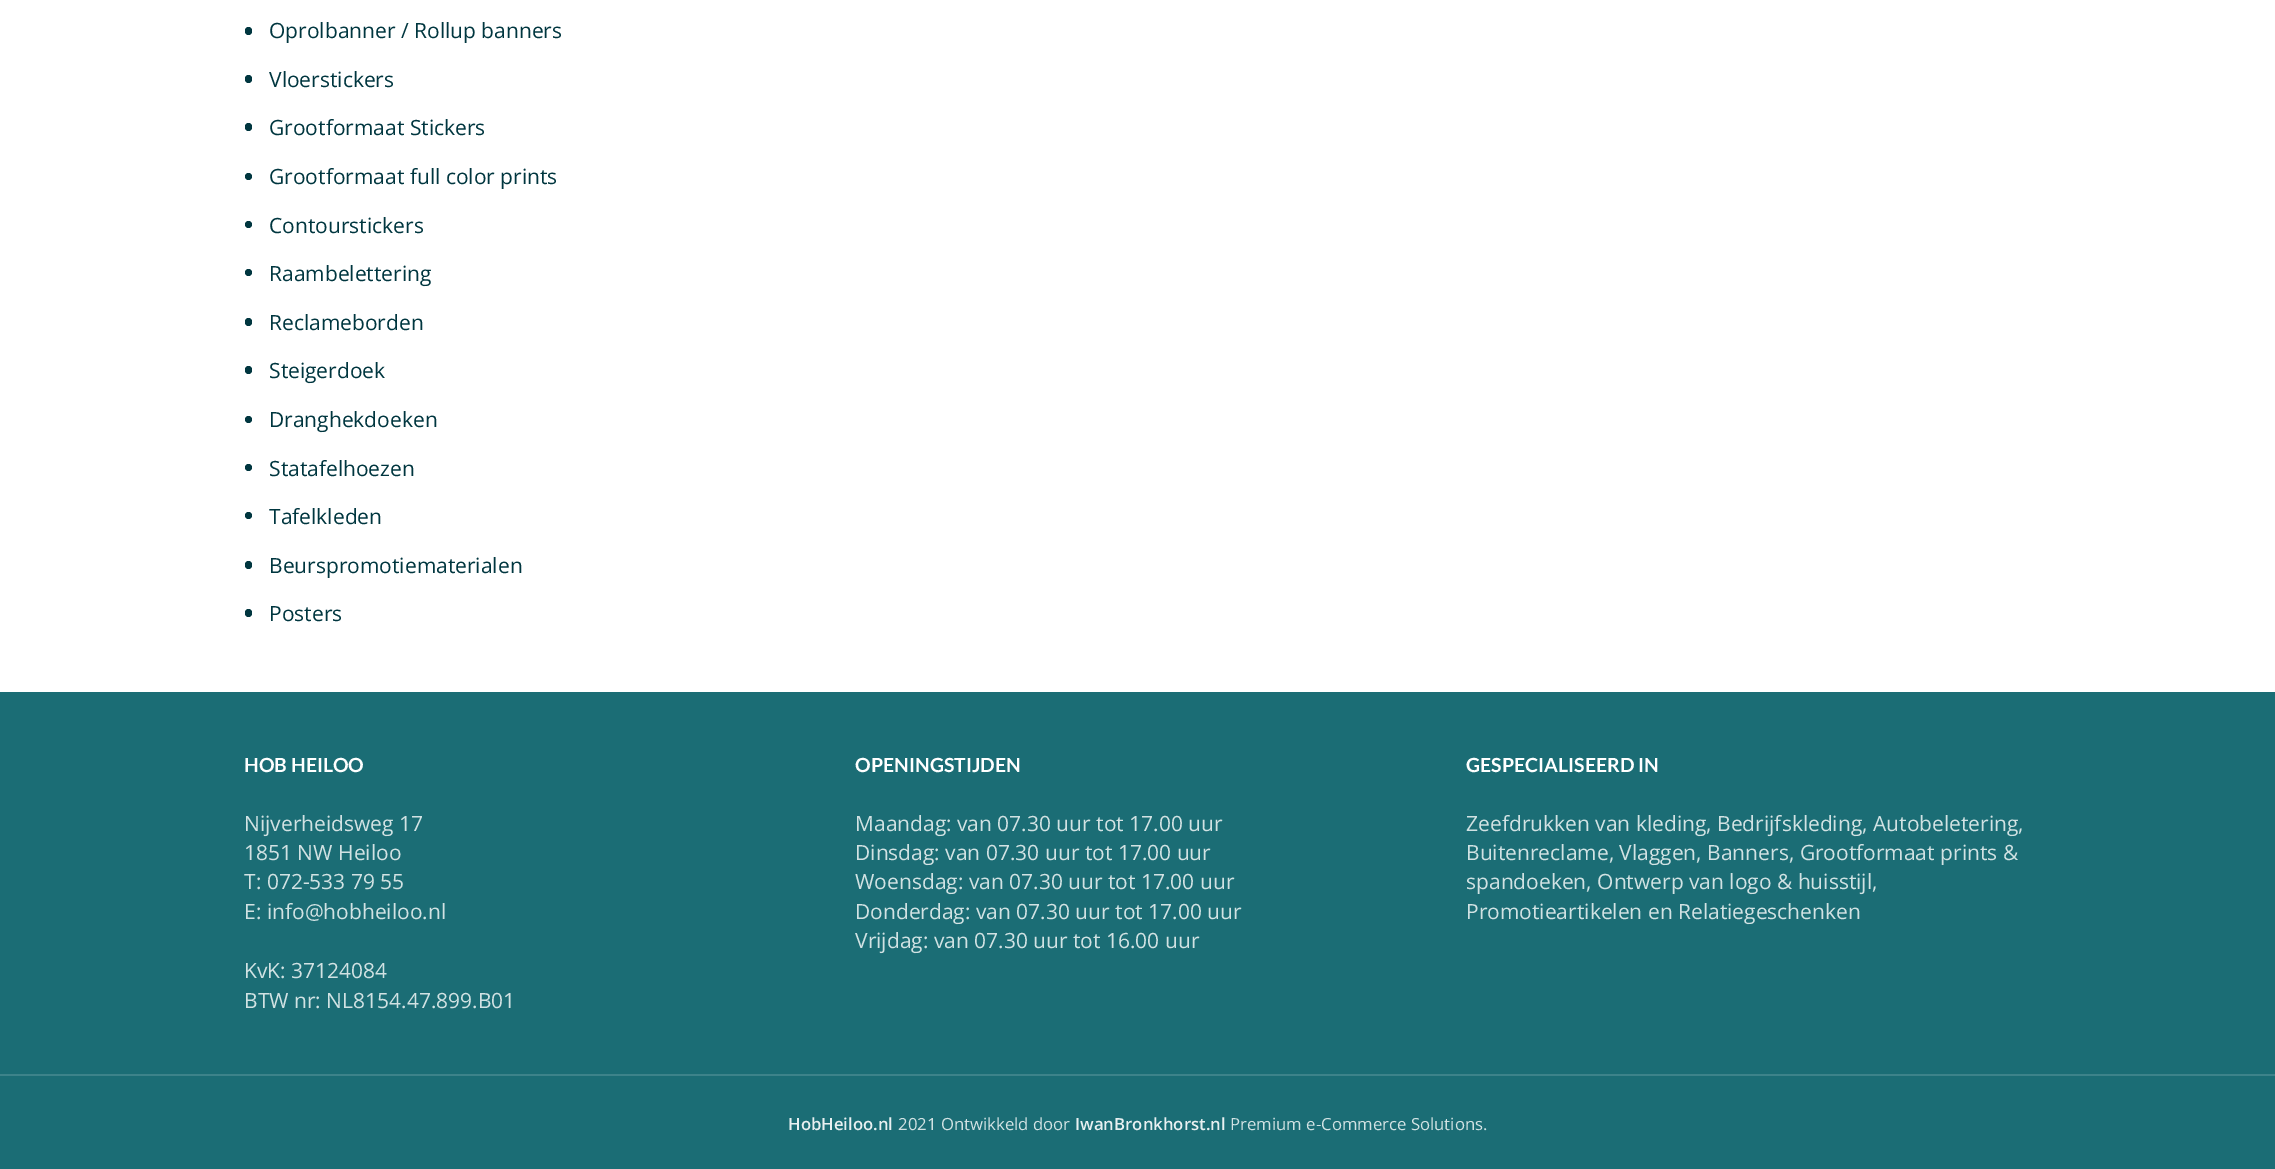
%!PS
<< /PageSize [2275 1169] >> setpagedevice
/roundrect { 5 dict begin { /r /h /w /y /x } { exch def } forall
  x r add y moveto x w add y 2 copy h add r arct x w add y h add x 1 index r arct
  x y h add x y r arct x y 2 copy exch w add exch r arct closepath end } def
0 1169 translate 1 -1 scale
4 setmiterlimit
1 setgray
0 0 2275 1169 rectfill
0 0.212 0.247 setrgbcolor
245 27 7 8 3.5 roundrect fill
/OpenSans-Regular [21 0 0 -21 0 0] selectfont
269 38 moveto (Oprolbanner / Rollup banners) show
245 75 7 8 3.5 roundrect fill
269 87 moveto (Vloerstickers) show
245 123 7 8 3.5 roundrect fill
269 135 moveto (Grootformaat Stickers) show
newpath 248.5 176.5 3.5 0 360 arc closepath fill
269 184 moveto (Grootformaat full color prints) show
newpath 248.5 224.5 3.5 0 360 arc closepath fill
269 233 moveto (Contourstickers) show
newpath 248.5 272.5 3.5 0 360 arc closepath fill
269 281 moveto (Raambelettering) show
245 318 7 8 3.5 roundrect fill
269 330 moveto (Reclameborden) show
245 366 7 8 3.5 roundrect fill
269 378 moveto (Steigerdoek) show
newpath 248.5 419.5 3.5 0 360 arc closepath fill
269 427 moveto (Dranghekdoeken) show
newpath 248.5 467.5 3.5 0 360 arc closepath fill
269 476 moveto (Statafelhoezen) show
newpath 248.5 515.5 3.5 0 360 arc closepath fill
269 524 moveto (Tafelkleden) show
245 561 7 8 3.5 roundrect fill
269 573 moveto (Beurspromotiematerialen) show
245 609 7 8 3.5 roundrect fill
269 621 moveto (Posters) show
0.106 0.427 0.459 setrgbcolor
0 692 2275 477 rectfill
/Lato-Bold [19.5 0 0 -19.5 0 0] selectfont
1 setgray
244 772 moveto (HOB HEILOO) show
/OpenSans-Regular [21 0 0 -21 0 0] selectfont
0.82 0.886 0.89 setrgbcolor
244 831 moveto (Nijverheidsweg 17) show
244 860 moveto (1851 NW Heiloo) show
244 889 moveto (T: 072-533 79 55) show
244 919 moveto (E: info@hobheiloo.nl) show
244 978 moveto (KvK: 37124084) show
244 1008 moveto (BTW nr: NL8154.47.899.B01) show
/Lato-Bold [19.5 0 0 -19.5 0 0] selectfont
1 setgray
855 772 moveto (OPENINGSTIJDEN) show
/OpenSans-Regular [21 0 0 -21 0 0] selectfont
0.82 0.886 0.89 setrgbcolor
855 831 moveto (Maandag: van 07.30 uur tot 17.00 uur) show
855 860 moveto (Dinsdag: van 07.30 uur tot 17.00 uur) show
855 889 moveto (Woensdag: van 07.30 uur tot 17.00 uur) show
855 919 moveto (Donderdag: van 07.30 uur tot 17.00 uur) show
855 948 moveto (Vrijdag: van 07.30 uur tot 16.00 uur) show
/Lato-Bold [19.5 0 0 -19.5 0 0] selectfont
1 setgray
1466 772 moveto (GESPECIALISEERD IN) show
/OpenSans-Regular [21 0 0 -21 0 0] selectfont
0.82 0.886 0.89 setrgbcolor
1466 831 moveto (Zeefdrukken van kleding, Bedrijfskleding, Autobeletering,) show
1466 860 moveto (Buitenreclame, Vlaggen, Banners, Grootformaat prints &) show
1466 889 moveto (spandoeken, Ontwerp van logo & huisstijl,) show
1466 919 moveto (Promotieartikelen en Relatiegeschenken) show
0.239 0.514 0.541 setrgbcolor
0 1074 2275 2 rectfill
/OpenSans-SemiBold [16.75 0 0 -16.75 0 0] selectfont
0.91 0.941 0.945 setrgbcolor
788 1130 moveto (HobHeiloo.nl) show
/OpenSans-Regular [16.75 0 0 -16.75 0 0] selectfont
0.82 0.886 0.89 setrgbcolor
898 1130 moveto (2021 Ontwikkeld door) show
/OpenSans-SemiBold [16.75 0 0 -16.75 0 0] selectfont
0.91 0.941 0.945 setrgbcolor
1075 1130 moveto (IwanBronkhorst.nl) show
/OpenSans-Regular [16.75 0 0 -16.75 0 0] selectfont
0.82 0.886 0.89 setrgbcolor
1230 1130 moveto (Premium e-Commerce Solutions.) show
showpage
